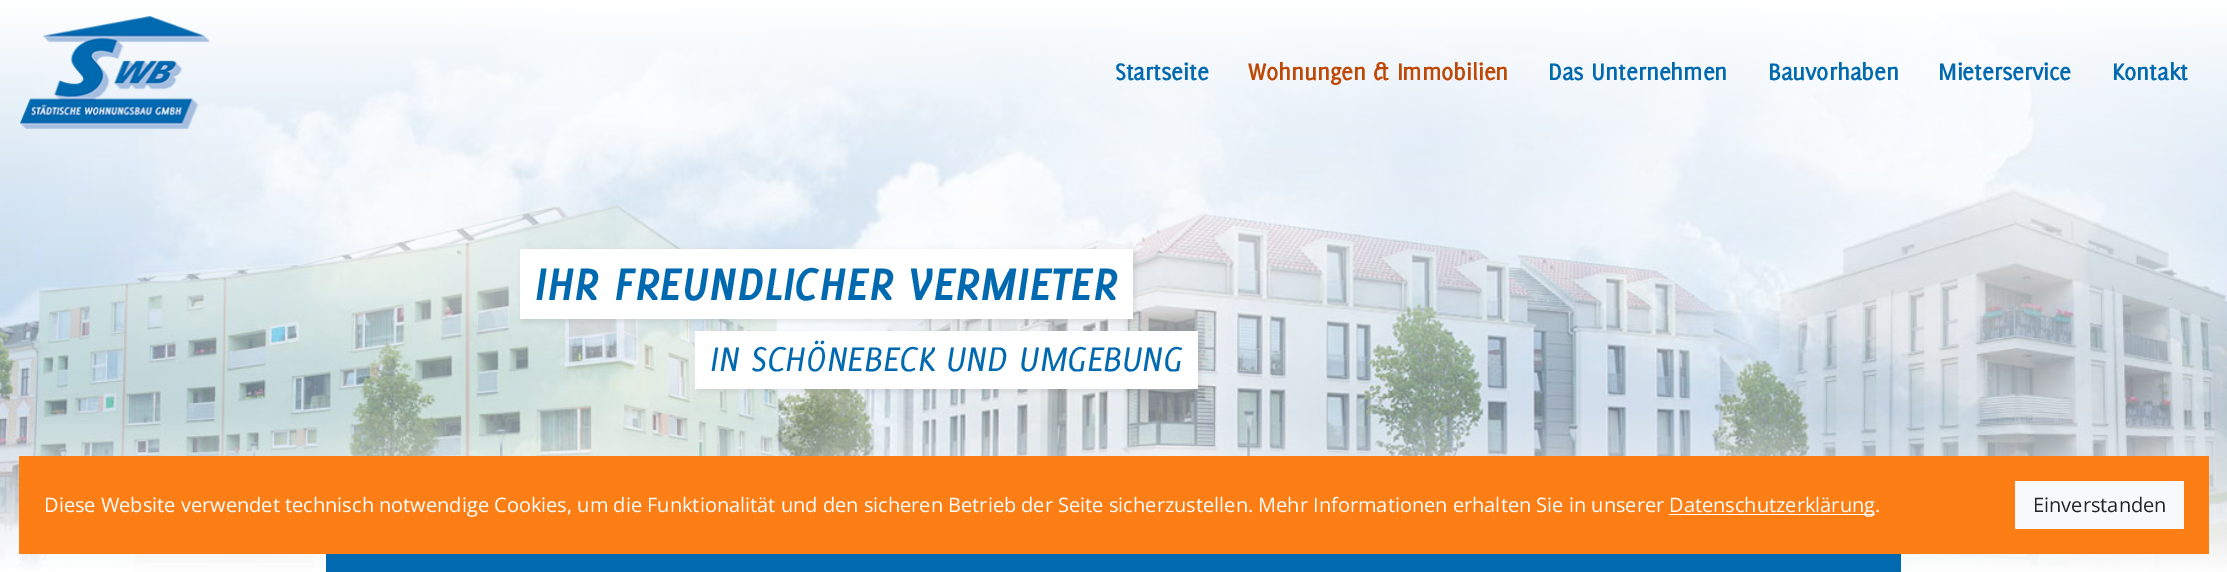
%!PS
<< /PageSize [2227 572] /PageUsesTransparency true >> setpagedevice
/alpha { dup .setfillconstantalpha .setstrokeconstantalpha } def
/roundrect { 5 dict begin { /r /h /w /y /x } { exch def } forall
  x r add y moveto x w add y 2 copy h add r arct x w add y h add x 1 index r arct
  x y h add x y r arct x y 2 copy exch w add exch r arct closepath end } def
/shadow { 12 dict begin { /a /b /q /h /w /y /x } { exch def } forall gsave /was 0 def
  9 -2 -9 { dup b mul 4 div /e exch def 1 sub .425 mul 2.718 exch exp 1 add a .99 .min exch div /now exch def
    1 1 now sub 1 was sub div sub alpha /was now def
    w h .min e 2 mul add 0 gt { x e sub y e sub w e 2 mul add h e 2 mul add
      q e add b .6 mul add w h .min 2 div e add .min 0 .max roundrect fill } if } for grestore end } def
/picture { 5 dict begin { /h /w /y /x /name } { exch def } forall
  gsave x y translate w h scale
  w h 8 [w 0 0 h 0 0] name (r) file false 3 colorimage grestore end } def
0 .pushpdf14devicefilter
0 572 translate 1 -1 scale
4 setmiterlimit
1 setgray
0 0 2227 572 rectfill
(img2.rgb) 0 0 2227 572 picture
(img1.rgb) 20 16 190 113 picture
/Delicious-Bold [25 0 0 -25 0 0] selectfont
0 0.412 0.686 setrgbcolor
1115 80 moveto (Startseite) show
0.745 0.282 0.016 setrgbcolor
1248 80 moveto (Wohnungen & Immobilien) show
0 0.412 0.686 setrgbcolor
1548 80 moveto (Das Unternehmen) show
1768 80 moveto (Bauvorhaben) show
1938 80 moveto (Mieterservice) show
2112 80 moveto (Kontakt) show
0 setgray
523 251 612 70 0 3 0.1 shadow
1 setgray
520 249 613 70 rectfill
/Delicious-BoldItalic [50 0 0 -50 0 0] selectfont
0 0.412 0.686 setrgbcolor
535 300 moveto (IHR FREUNDLICHER VERMIETER) show
0 setgray
698 334 502 57 0 3 0.1 shadow
1 setgray
695 331 503 58 rectfill
/Delicious-MediumItalic [37.5 0 0 -37.5 0 0] selectfont
0 0.412 0.686 setrgbcolor
710 371 moveto (IN SCHÖNEBECK UND UMGEBUNG) show
0.992 0.494 0.078 setrgbcolor
19 456 2190 98 rectfill
/OpenSans-Regular [20 0 0 -20 0 0] selectfont
1 setgray
44 512 moveto (Diese Website verwendet technisch notwendige Cookies, um die Funktionalität und den sicheren Betrieb der Seite sicherzustellen. Mehr Informationen erhalten Sie in unserer) show
1669 514 206 1 rectfill
1669 512 moveto (Datenschutzerklärung.) show
0.973 0.976 0.98 setrgbcolor
2015 481 169 48 rectfill
0.129 0.145 0.161 setrgbcolor
2033 512 moveto (Einverstanden) show
0 0.412 0.686 setrgbcolor
326 554 1575 18 rectfill
.poppdf14devicefilter showpage
